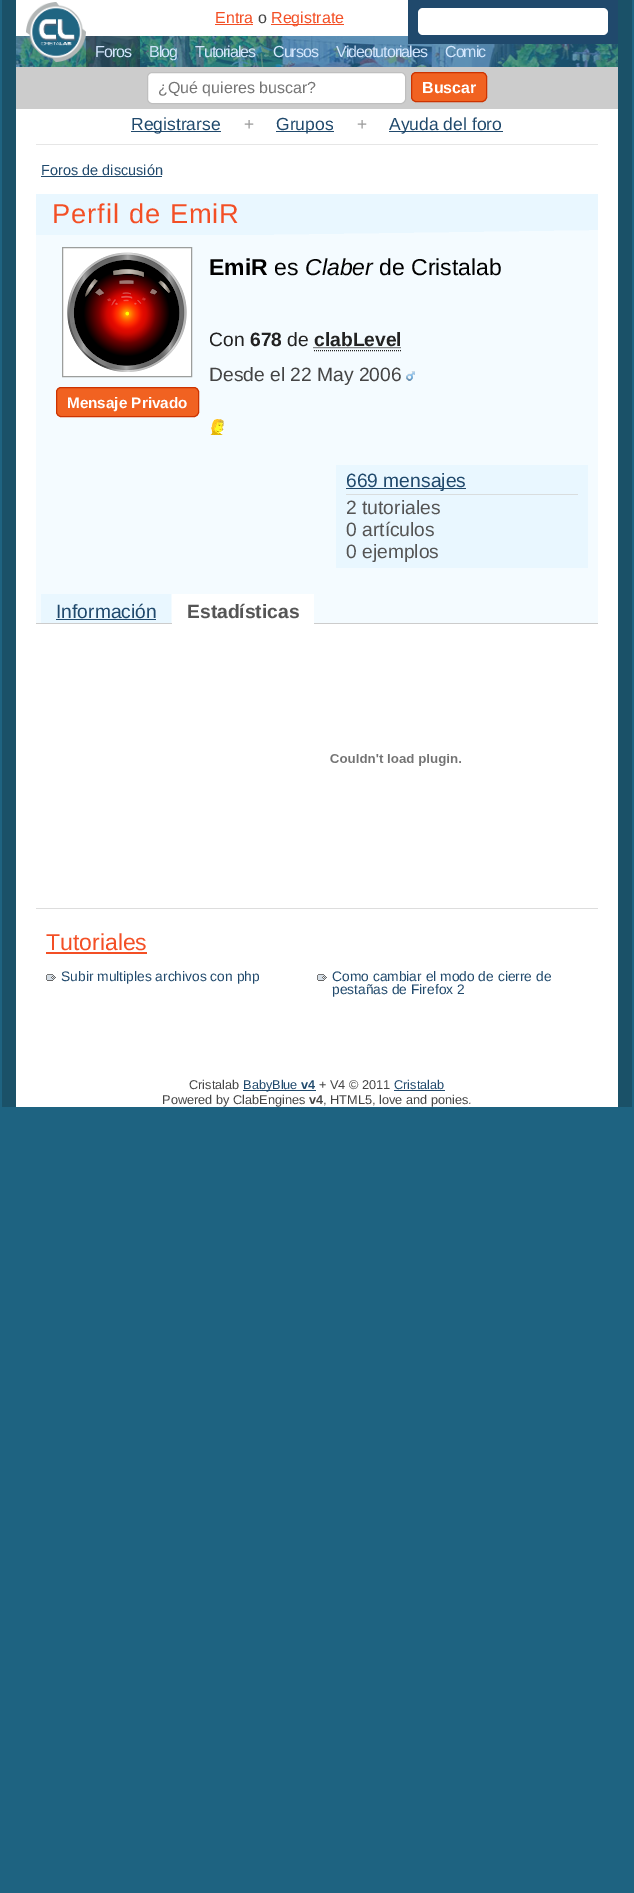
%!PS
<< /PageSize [634 1893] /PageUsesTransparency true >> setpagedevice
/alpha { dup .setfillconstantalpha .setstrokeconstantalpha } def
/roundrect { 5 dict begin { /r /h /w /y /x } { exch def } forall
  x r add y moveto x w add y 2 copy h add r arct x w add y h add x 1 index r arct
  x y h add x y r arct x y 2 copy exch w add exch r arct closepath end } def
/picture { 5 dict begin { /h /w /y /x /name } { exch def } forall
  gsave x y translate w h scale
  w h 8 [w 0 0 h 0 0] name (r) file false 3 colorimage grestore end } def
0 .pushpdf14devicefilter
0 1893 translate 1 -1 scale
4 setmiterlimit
0.118 0.388 0.506 setrgbcolor
0 0 634 1893 rectfill
1 setgray
16 0 602 1107 rectfill
0.102 0.318 0.408 setrgbcolor
618 0 14 1107 rectfill
2 0 14 1107 rectfill
(img2.rgb) 16 36 602 31 picture
(img1.rgb) 26 2 60 60 picture
/LiberationSans-Regular [16 0 0 -16 0 0] selectfont
0.953 0.31 0.145 setrgbcolor
215 23 moveto (Entra) show
215 24 38 1 rectfill
0.267 setgray
258 23 moveto (o) show
0.953 0.31 0.145 setrgbcolor
271 24 73 1 rectfill
271 23 moveto (Registrate) show
0.125 0.286 0.424 setrgbcolor
408 0 210 44 rectfill
1 setgray
418 8 190 27 5 roundrect fill
0.5 alpha
0.141 0.173 0.2 setrgbcolor
86 36 54 31 rectfill
1 alpha
0.827 0.902 0.992 setrgbcolor
95 57 moveto -1 0 (Foros) ashow
149 57 moveto -1 0 (Blog) ashow
195 57 moveto -1 0 (Tutoriales) ashow
273 57 moveto -1 0 (Cursos) ashow
336 57 moveto -1 0 (Videotutoriales) ashow
445 57 moveto -1 0 (Comic) ashow
0.8 setgray
16 67 602 42 rectfill
1 setgray
147.5 72.5 258 31 4.5 roundrect gsave fill grestore
0.749 setgray
stroke
0.459 setgray
158 93 moveto (¿Qué quieres buscar?) show
0.945 0.384 0.129 setrgbcolor
411.5 72.5 75 29 4.5 roundrect gsave fill grestore
0.8 0.2 0 setrgbcolor
stroke
/LiberationSans-Bold [16 0 0 -16 0 0] selectfont
1 setgray
422 93 moveto (Buscar) show
0.902 setgray
36 144 562 1 rectfill
0.125 0.286 0.424 setrgbcolor
131 131 90 1 rectfill
/LiberationSans-Regular [17.5 0 0 -17.5 0 0] selectfont
131 130 moveto (Registrarse) show
0.6 setgray
244 130 moveto (+) show
0.125 0.286 0.424 setrgbcolor
276 131 58 1 rectfill
276 130 moveto (Grupos) show
0.6 setgray
357 130 moveto (+) show
0.125 0.286 0.424 setrgbcolor
389 131 114 1 rectfill
389 130 moveto (Ayuda del foro) show
/LiberationSans-Regular [14.5 0 0 -14.5 0 0] selectfont
41 175 moveto (Foros de discusión) show
41 176 121 1 rectfill
0.914 0.969 1 setrgbcolor
36 194 562 41 rectfill
(img3.rgb) 274 230 324 5 picture
/LiberationSans-Regular [27.25 0 0 -27.25 0 0] selectfont
0.953 0.31 0.145 setrgbcolor
52 223 moveto 1 0 (Perfil de EmiR) ashow
0.957 0.984 1 setrgbcolor
36 235 562 388 rectfill
/LiberationSans-Bold [23 0 0 -23 0 0] selectfont
0 setgray
209 275 moveto (EmiR) show
/LiberationSans-Regular [23 0 0 -23 0 0] selectfont
274 275 moveto (es) show
/LiberationSans-Italic [23 0 0 -23 0 0] selectfont
305 275 moveto (Claber) show
/LiberationSans-Regular [23 0 0 -23 0 0] selectfont
379 275 moveto (de Cristalab) show
/LiberationSans-Regular [19.25 0 0 -19.25 0 0] selectfont
0.133 setgray
209 346 moveto (Con) show
/LiberationSans-Bold [19.25 0 0 -19.25 0 0] selectfont
250 346 moveto (678) show
/LiberationSans-Regular [19.25 0 0 -19.25 0 0] selectfont
287 346 moveto (de) show
/LiberationSans-Bold [19.25 0 0 -19.25 0 0] selectfont
314 346 moveto (clabLevel) show
[1 1] 0 setdash
newpath 314 350.5 moveto 401 350.5 lineto stroke
newpath 313.5 347.5 moveto 401 347.5 lineto stroke
/LiberationSans-Regular [19.25 0 0 -19.25 0 0] selectfont
0.267 setgray
209 381 moveto (Desde el 22 May 2006) show
(img4.rgb) 406 371 9 10 picture
(img5.rgb) 210 419 14 16 picture
1 setgray
newpath 62.5 247.5 moveto 191.5 247.5 lineto 191.5 376.5 lineto 62.5 376.5 lineto closepath gsave fill grestore
0.612 0.62 0.612 setrgbcolor
[] 0 setdash
stroke
(img6.rgb) 67 252 120 120 picture
0.945 0.384 0.129 setrgbcolor
56.5 387.5 142 29 4.5 roundrect gsave fill grestore
0.8 0.2 0 setrgbcolor
stroke
/LiberationSans-Bold [15.25 0 0 -15.25 0 0] selectfont
1 setgray
67 408 moveto (Mensaje Privado) show
0.914 0.969 1 setrgbcolor
336 465 252 103 rectfill
0.851 0.867 0.871 setrgbcolor
346 494 232 1 rectfill
0.125 0.286 0.424 setrgbcolor
346 488 120 1 rectfill
/LiberationSans-Regular [19.25 0 0 -19.25 0 0] selectfont
346 487 moveto (669 mensajes) show
0.333 setgray
346 514 moveto (2 tutoriales) show
346 536 moveto (0 artículos) show
346 558 moveto (0 ejemplos) show
0.914 0.969 1 setrgbcolor
41 594 130 29 rectfill
0.125 0.286 0.424 setrgbcolor
56 618 moveto (Información) show
56 619 100 1 rectfill
0.8 setgray
36 623 562 1 rectfill
1 setgray
172 594 142 30 rectfill
/LiberationSans-Bold [19.25 0 0 -19.25 0 0] selectfont
0.333 setgray
187 618 moveto (Estadísticas) show
(img7.rgb) 330 754 131 12 picture
0.867 setgray
36 908 562 1 rectfill
/LiberationSans-Regular [23 0 0 -23 0 0] selectfont
0.953 0.31 0.145 setrgbcolor
46 950 moveto (Tutoriales) show
46 952 101 2 rectfill
(img8.rgb) 46 974 10 7 picture
/LiberationSans-Regular [13.8 0 0 -13.8 0 0] selectfont
0.125 0.286 0.424 setrgbcolor
61 981 moveto (Subir multiples archivos con php) show
(img8.rgb) 317 974 10 7 picture
332 981 moveto (Como cambiar el modo de cierre de) show
332 994 moveto (pestañas de Firefox 2) show
/LiberationSans-Regular [12.75 0 0 -12.75 0 0] selectfont
0.267 setgray
189 1089 moveto (Cristalab) show
0.125 0.286 0.424 setrgbcolor
243 1090 73 1 rectfill
243 1089 moveto (BabyBlue) show
/LiberationSans-Bold [12.75 0 0 -12.75 0 0] selectfont
301 1089 moveto (v4) show
/LiberationSans-Regular [12.75 0 0 -12.75 0 0] selectfont
0.267 setgray
319 1089 moveto (+ V4 © 2011) show
0.125 0.286 0.424 setrgbcolor
394 1089 moveto (Cristalab) show
394 1090 51 1 rectfill
0.267 setgray
162 1104 moveto (Powered by ClabEngines) show
/LiberationSans-Bold [12.75 0 0 -12.75 0 0] selectfont
309 1104 moveto (v4) show
/LiberationSans-Regular [12.75 0 0 -12.75 0 0] selectfont
323 1104 moveto (, HTML5, love and ponies.) show
.poppdf14devicefilter showpage
